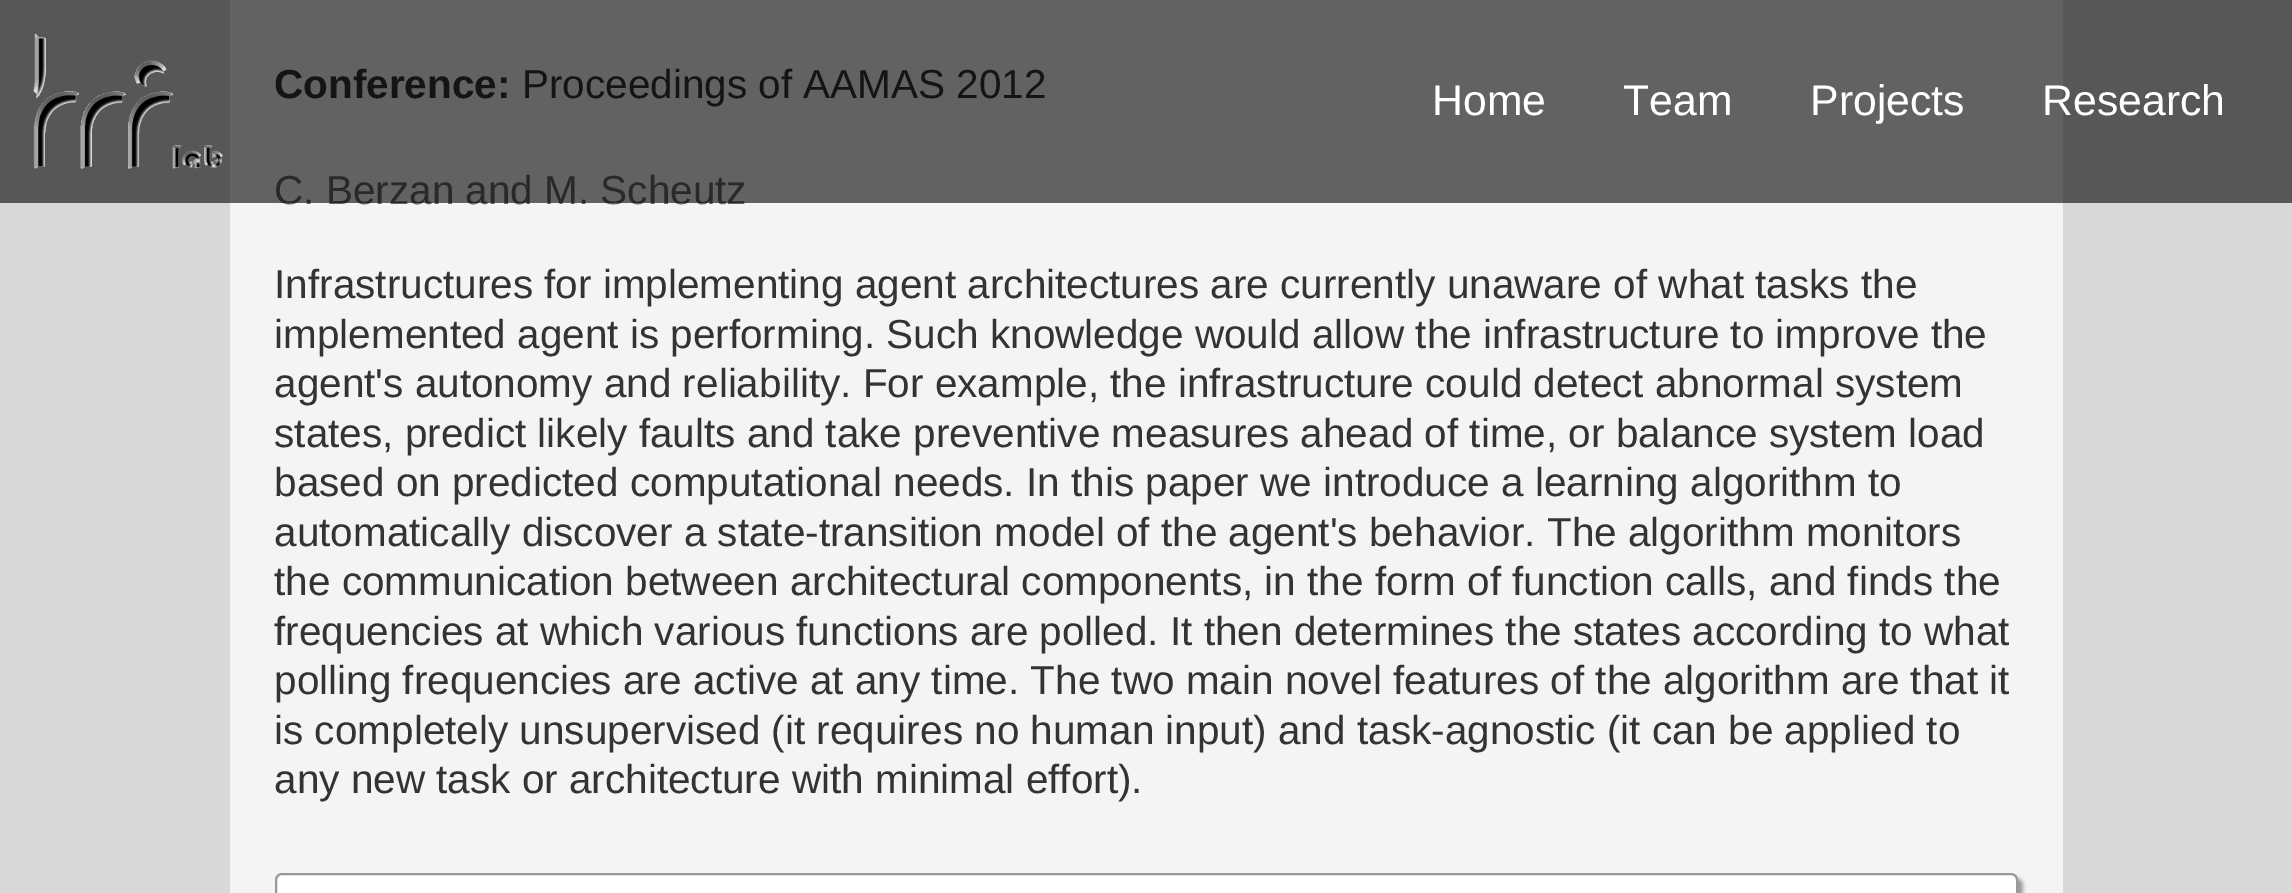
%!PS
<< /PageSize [2292 893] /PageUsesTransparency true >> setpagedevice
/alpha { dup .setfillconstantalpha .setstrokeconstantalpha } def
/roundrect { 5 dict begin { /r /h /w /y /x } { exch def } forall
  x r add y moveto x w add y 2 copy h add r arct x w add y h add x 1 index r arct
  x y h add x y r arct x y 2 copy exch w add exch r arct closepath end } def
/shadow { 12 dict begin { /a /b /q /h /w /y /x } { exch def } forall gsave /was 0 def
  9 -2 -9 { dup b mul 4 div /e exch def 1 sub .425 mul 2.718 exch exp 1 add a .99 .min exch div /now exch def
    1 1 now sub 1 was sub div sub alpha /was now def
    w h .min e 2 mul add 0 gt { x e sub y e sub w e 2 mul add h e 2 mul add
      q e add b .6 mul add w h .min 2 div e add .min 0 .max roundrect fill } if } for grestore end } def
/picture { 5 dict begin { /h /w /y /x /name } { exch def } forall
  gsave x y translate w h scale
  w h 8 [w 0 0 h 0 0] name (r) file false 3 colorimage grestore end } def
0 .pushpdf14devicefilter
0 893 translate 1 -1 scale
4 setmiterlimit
0.851 setgray
0 0 2292 893 rectfill
0.957 setgray
230 0 1833 893 rectfill
/LiberationSans-Bold [40.5 0 0 -40.5 0 0] selectfont
0.2 setgray
274 98 moveto (Conference:) show
/LiberationSans-Regular [40.5 0 0 -40.5 0 0] selectfont
522 98 moveto (Proceedings of AAMAS 2012) show
0.4 setgray
274 204 moveto (C. Berzan and M. Scheutz) show
0.2 setgray
274 298 moveto (Infrastructures for implementing agent architectures are currently unaware of what tasks the) show
274 348 moveto (implemented agent is performing. Such knowledge would allow the infrastructure to improve the) show
274 397 moveto (agent's autonomy and reliability. For example, the infrastructure could detect abnormal system) show
274 447 moveto (states, predict likely faults and take preventive measures ahead of time, or balance system load) show
274 496 moveto (based on predicted computational needs. In this paper we introduce a learning algorithm to) show
274 546 moveto (automatically discover a state-transition model of the agent's behavior. The algorithm monitors) show
274 595 moveto (the communication between architectural components, in the form of function calls, and finds the) show
274 645 moveto (frequencies at which various functions are polled. It then determines the states according to what) show
274 694 moveto (polling frequencies are active at any time. The two main novel features of the algorithm are that it) show
274 744 moveto (is completely unsupervised \(it requires no human input\) and task-agnostic \(it can be applied to) show
274 793 moveto (any new task or architecture with minimal effort\).) show
0.6 setgray
279 878 1744 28 7 2 1 shadow
1 setgray
276 874 1741 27 6 roundrect gsave fill grestore
0.6 setgray
2 setlinewidth
stroke
0.6 alpha
0 setgray
0 0 2292 203 rectfill
1 alpha
(img1.rgb) 33 33 190 136 picture
/LiberationSans-Regular [42.75 0 0 -42.75 0 0] selectfont
1 setgray
1432 115 moveto (Home) show
1623 115 moveto (Team) show
1810 115 moveto (Projects) show
2042 115 moveto (Research) show
.poppdf14devicefilter showpage
